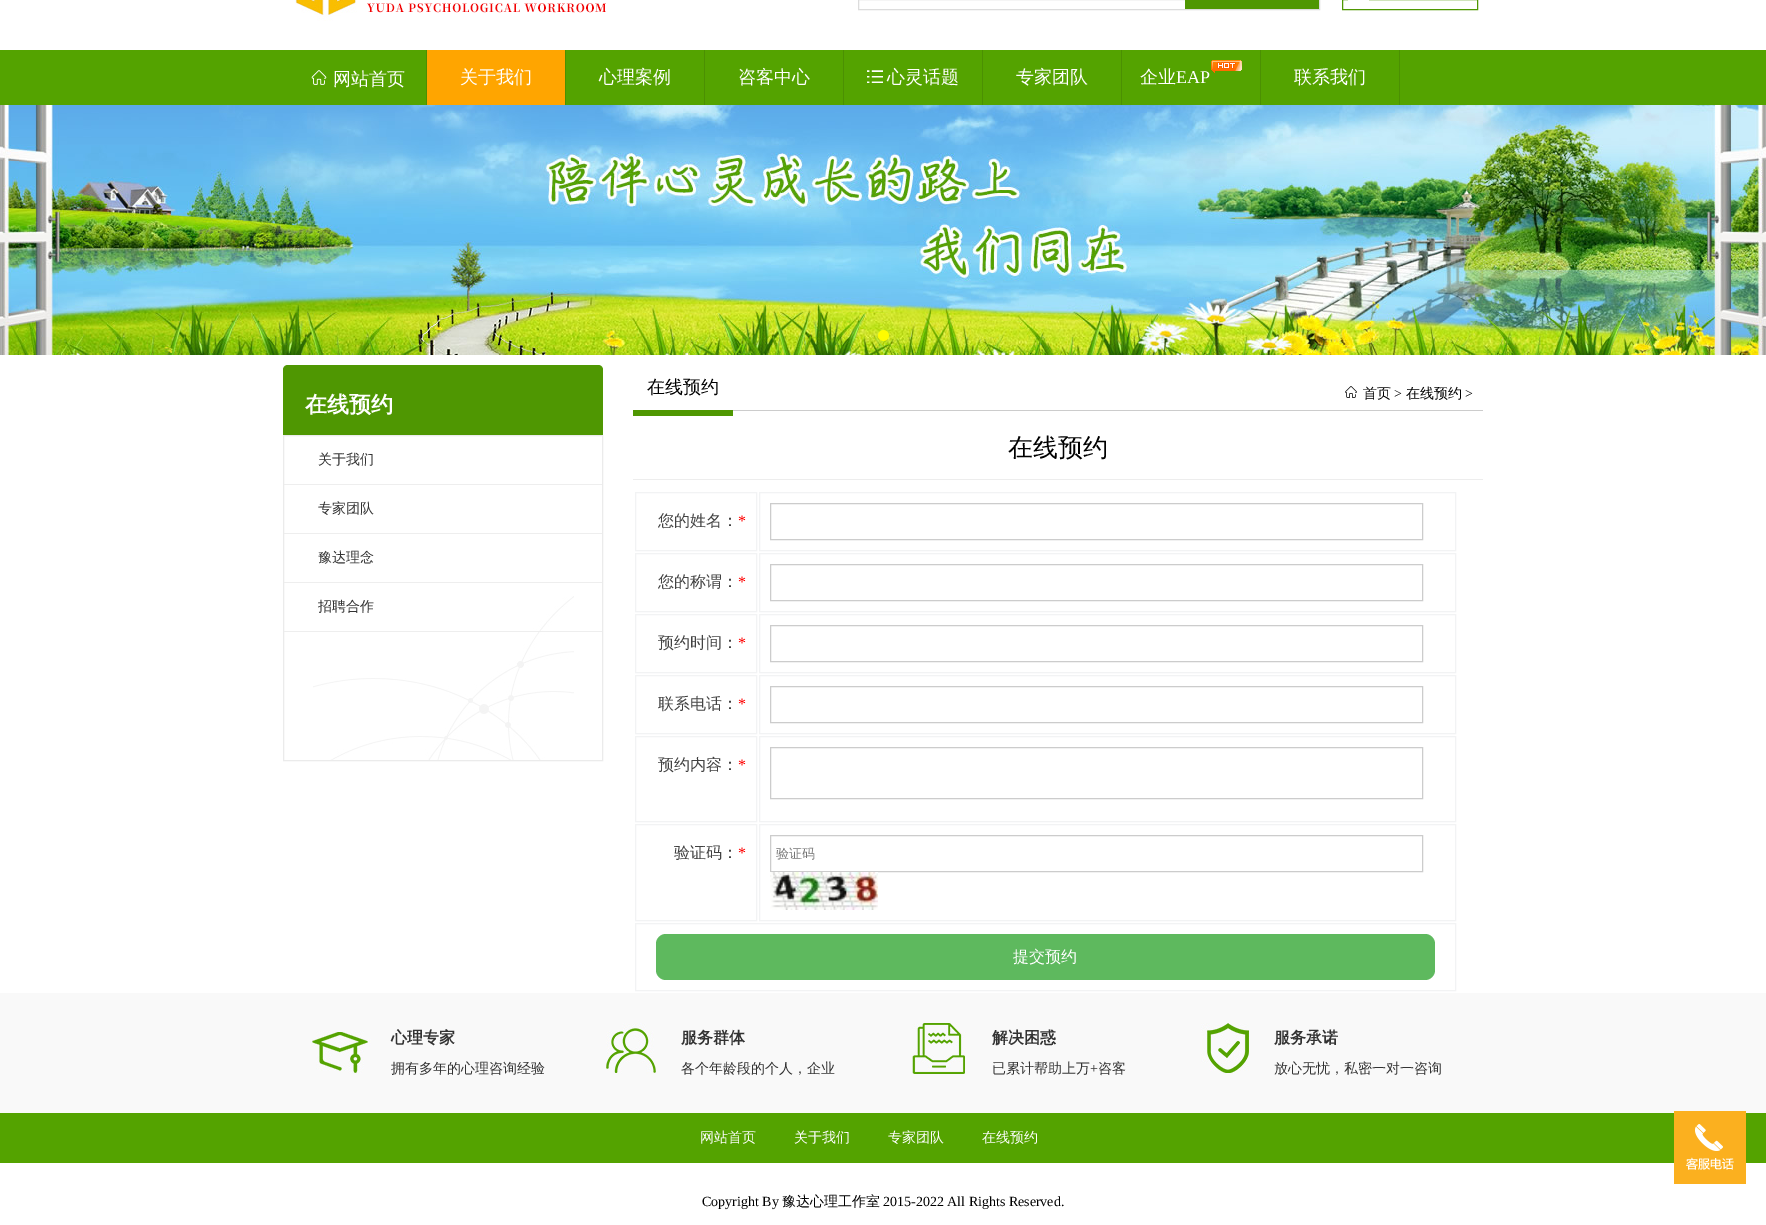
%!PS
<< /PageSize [1766 1225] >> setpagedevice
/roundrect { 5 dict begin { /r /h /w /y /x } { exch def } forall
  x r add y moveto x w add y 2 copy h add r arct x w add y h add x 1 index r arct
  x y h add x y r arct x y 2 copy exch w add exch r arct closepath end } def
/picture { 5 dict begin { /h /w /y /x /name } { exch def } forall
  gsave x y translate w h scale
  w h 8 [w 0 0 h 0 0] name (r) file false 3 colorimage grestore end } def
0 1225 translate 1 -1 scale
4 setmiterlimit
1 setgray
0 0 1766 1225 rectfill
(img1.rgb) 295 0 311 21 picture
0.863 setgray
858.5 -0.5 461 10 rectstroke
0.31 0.592 0.008 setrgbcolor
1185 0 134 9 rectfill
1342.5 -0.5 135 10 rectstroke
(img2.rgb) 1348 0 21 1 picture
0.329 0.639 0 setrgbcolor
0 50 1766 55 rectfill
0.294 0.565 0.008 setrgbcolor
426 50 1 55 rectfill
(img3.rgb) 311 70 16 15 picture
/WenQuanYiZenHei-Medium [18 0 0 -18 0 0] selectfont
1 setgray
333 85 moveto (网站首页) show
0.294 0.565 0.008 setrgbcolor
565 50 1 55 rectfill
1 0.647 0 setrgbcolor
427 50 138 55 rectfill
1 setgray
460 83 moveto (关于我们) show
0.294 0.565 0.008 setrgbcolor
704 50 1 55 rectfill
1 setgray
599 83 moveto (心理案例) show
0.294 0.565 0.008 setrgbcolor
843 50 1 55 rectfill
1 setgray
738 83 moveto (咨客中心) show
0.294 0.565 0.008 setrgbcolor
982 50 1 55 rectfill
(img4.rgb) 867 70 16 13 picture
1 setgray
887 83 moveto (心灵话题) show
0.294 0.565 0.008 setrgbcolor
1121 50 1 55 rectfill
1 setgray
1016 83 moveto (专家团队) show
0.294 0.565 0.008 setrgbcolor
1260 50 1 55 rectfill
(img5.rgb) 1211 60 31 13 picture
1 setgray
1140 83 moveto (企业) show
/LiberationSerif-Regular [18 0 0 -18 0 0] selectfont
1176 83 moveto (EAP) show
0.294 0.565 0.008 setrgbcolor
1399 50 1 55 rectfill
/WenQuanYiZenHei-Medium [18 0 0 -18 0 0] selectfont
1 setgray
1294 83 moveto (联系我们) show
(img6.rgb) 0 105 1766 250 picture
(img7.rgb) 878 330 11 11 picture
0.31 0.592 0.008 setrgbcolor
newpath 288 365 moveto 598 365 lineto 601 365 603 367 603 370 curveto 603 435 lineto 283 435 lineto 283 370 lineto 283 367 285 365 288 365 curveto closepath fill
/WenQuanYiZenHei-Bold [22 0 0 -22 0 0] selectfont
1 setgray
305 412 moveto (在线预约) show
(img8.rgb) 313 596 261 164 picture
0.922 setgray
283.5 435.5 319 325 rectstroke
0.933 setgray
284 484 318 1 rectfill
/WenQuanYiZenHei-Medium [14 0 0 -14 0 0] selectfont
0.2 setgray
318 464 moveto (关于我们) show
0.933 setgray
284 533 318 1 rectfill
0.2 setgray
318 513 moveto (专家团队) show
0.933 setgray
284 582 318 1 rectfill
0.2 setgray
318 562 moveto (豫达理念) show
0.933 setgray
284 631 318 1 rectfill
0.2 setgray
318 611 moveto (招聘合作) show
0.8 setgray
733 410 750 1 rectfill
0.31 0.592 0.008 setrgbcolor
633 410 100 6 rectfill
/WenQuanYiZenHei-Medium [18 0 0 -18 0 0] selectfont
0 setgray
647 393 moveto (在线预约) show
(img9.rgb) 1345 386 12 12 picture
/WenQuanYiZenHei-Medium [14 0 0 -14 0 0] selectfont
1363 398 moveto (首页) show
/LiberationSerif-Regular [14 0 0 -14 0 0] selectfont
1394 398 moveto (>) show
/WenQuanYiZenHei-Medium [14 0 0 -14 0 0] selectfont
1406 398 moveto (在线预约) show
/LiberationSerif-Regular [14 0 0 -14 0 0] selectfont
1465 398 moveto (>) show
0.929 setgray
633 479 850 1 rectfill
/WenQuanYiZenHei-Medium [25 0 0 -25 0 0] selectfont
0 setgray
1008 456 moveto (在线预约) show
0.949 0.953 0.957 setrgbcolor
635.5 492.5 121 58 rectstroke
/WenQuanYiZenHei-Medium [16 0 0 -16 0 0] selectfont
0.259 setgray
658 526 moveto (您的姓名：) show
/LiberationSerif-Regular [16 0 0 -16 0 0] selectfont
1 0 0 setrgbcolor
738 526 moveto (*) show
0.949 0.953 0.957 setrgbcolor
759.5 492.5 696 58 rectstroke
0.8 setgray
770.5 503.5 652 36 rectstroke
0.949 0.953 0.957 setrgbcolor
635.5 553.5 121 58 rectstroke
/WenQuanYiZenHei-Medium [16 0 0 -16 0 0] selectfont
0.259 setgray
658 587 moveto (您的称谓：) show
/LiberationSerif-Regular [16 0 0 -16 0 0] selectfont
1 0 0 setrgbcolor
738 587 moveto (*) show
0.949 0.953 0.957 setrgbcolor
759.5 553.5 696 58 rectstroke
0.8 setgray
770.5 564.5 652 36 rectstroke
0.949 0.953 0.957 setrgbcolor
635.5 614.5 121 58 rectstroke
/WenQuanYiZenHei-Medium [16 0 0 -16 0 0] selectfont
0.259 setgray
658 648 moveto (预约时间：) show
/LiberationSerif-Regular [16 0 0 -16 0 0] selectfont
1 0 0 setrgbcolor
738 648 moveto (*) show
0.949 0.953 0.957 setrgbcolor
759.5 614.5 696 58 rectstroke
0.8 setgray
770.5 625.5 652 36 rectstroke
0.949 0.953 0.957 setrgbcolor
635.5 675.5 121 58 rectstroke
/WenQuanYiZenHei-Medium [16 0 0 -16 0 0] selectfont
0.259 setgray
658 709 moveto (联系电话：) show
/LiberationSerif-Regular [16 0 0 -16 0 0] selectfont
1 0 0 setrgbcolor
738 709 moveto (*) show
0.949 0.953 0.957 setrgbcolor
759.5 675.5 696 58 rectstroke
0.8 setgray
770.5 686.5 652 36 rectstroke
0.949 0.953 0.957 setrgbcolor
635.5 736.5 121 85 rectstroke
/WenQuanYiZenHei-Medium [16 0 0 -16 0 0] selectfont
0.259 setgray
658 770 moveto (预约内容：) show
/LiberationSerif-Regular [16 0 0 -16 0 0] selectfont
1 0 0 setrgbcolor
738 770 moveto (*) show
0.949 0.953 0.957 setrgbcolor
759.5 736.5 696 85 rectstroke
0.8 setgray
770.5 747.5 652 51 rectstroke
0.949 0.953 0.957 setrgbcolor
635.5 824.5 121 96 rectstroke
/WenQuanYiZenHei-Medium [16 0 0 -16 0 0] selectfont
0.259 setgray
674 858 moveto (验证码：) show
/LiberationSerif-Regular [16 0 0 -16 0 0] selectfont
1 0 0 setrgbcolor
738 858 moveto (*) show
0.949 0.953 0.957 setrgbcolor
759.5 824.5 696 96 rectstroke
0.8 setgray
770.5 835.5 652 36 rectstroke
/WenQuanYiZenHei-Medium [13 0 0 -13 0 0] selectfont
0.459 setgray
776 858 moveto (验证码) show
(img10.rgb) 770 872 108 38 picture
0.949 0.953 0.957 setrgbcolor
635.5 923.5 820 67 rectstroke
0.369 0.725 0.369 setrgbcolor
656 934 779 46 10 roundrect fill
/WenQuanYiZenHei-Medium [16 0 0 -16 0 0] selectfont
1 setgray
1013 962 moveto (提交预约) show
0.976 setgray
0 993 1766 120 rectfill
(img11.rgb) 310 1031 61 43 picture
/WenQuanYiZenHei-Bold [16 0 0 -16 0 0] selectfont
0.2 setgray
391 1043 moveto (心理专家) show
/WenQuanYiZenHei-Medium [14 0 0 -14 0 0] selectfont
391 1073 moveto (拥有多年的心理咨询经验) show
(img12.rgb) 606 1023 50 51 picture
/WenQuanYiZenHei-Bold [16 0 0 -16 0 0] selectfont
681 1043 moveto (服务群体) show
/WenQuanYiZenHei-Medium [14 0 0 -14 0 0] selectfont
681 1073 moveto (各个年龄段的个人，企业) show
(img13.rgb) 912 1023 54 51 picture
/WenQuanYiZenHei-Bold [16 0 0 -16 0 0] selectfont
992 1043 moveto (解决困惑) show
/WenQuanYiZenHei-Medium [14 0 0 -14 0 0] selectfont
992 1073 moveto (已累计帮助上万) show
/LiberationSerif-Regular [14 0 0 -14 0 0] selectfont
1090 1073 moveto (+) show
/WenQuanYiZenHei-Medium [14 0 0 -14 0 0] selectfont
1098 1073 moveto (咨客) show
(img14.rgb) 1201 1023 48 51 picture
/WenQuanYiZenHei-Bold [16 0 0 -16 0 0] selectfont
1274 1043 moveto (服务承诺) show
/WenQuanYiZenHei-Medium [14 0 0 -14 0 0] selectfont
1274 1073 moveto (放心无忧，私密一对一咨询) show
0.329 0.639 0 setrgbcolor
0 1113 1766 50 rectfill
1 setgray
700 1142 moveto (网站首页) show
794 1142 moveto (关于我们) show
888 1142 moveto (专家团队) show
982 1142 moveto (在线预约) show
0.984 0.69 0.122 setrgbcolor
1674 1111 72 73 rectfill
(img15.rgb) 1686 1124 48 46 picture
/LiberationSerif-Regular [14 0 0 -14 0 0] selectfont
0 setgray
702 1206 moveto (Copyright By) show
/WenQuanYiZenHei-Medium [14 0 0 -14 0 0] selectfont
782 1206 moveto (豫达心理工作室) show
/LiberationSerif-Regular [14 0 0 -14 0 0] selectfont
883 1206 moveto (2015-2022 All Rights Reserved.) show
showpage
